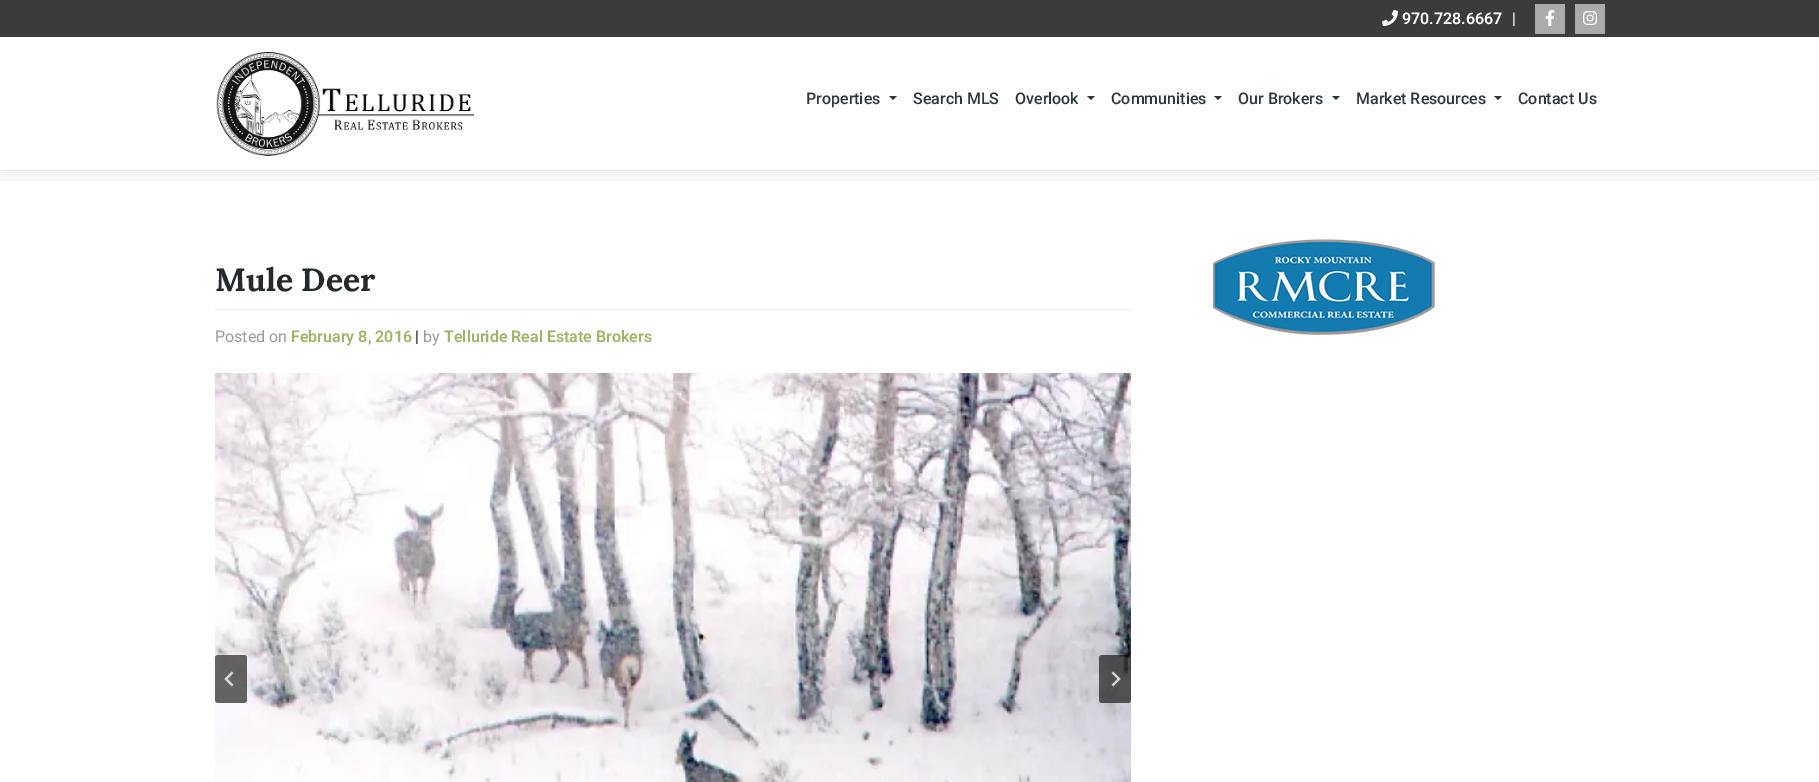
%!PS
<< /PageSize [1819 782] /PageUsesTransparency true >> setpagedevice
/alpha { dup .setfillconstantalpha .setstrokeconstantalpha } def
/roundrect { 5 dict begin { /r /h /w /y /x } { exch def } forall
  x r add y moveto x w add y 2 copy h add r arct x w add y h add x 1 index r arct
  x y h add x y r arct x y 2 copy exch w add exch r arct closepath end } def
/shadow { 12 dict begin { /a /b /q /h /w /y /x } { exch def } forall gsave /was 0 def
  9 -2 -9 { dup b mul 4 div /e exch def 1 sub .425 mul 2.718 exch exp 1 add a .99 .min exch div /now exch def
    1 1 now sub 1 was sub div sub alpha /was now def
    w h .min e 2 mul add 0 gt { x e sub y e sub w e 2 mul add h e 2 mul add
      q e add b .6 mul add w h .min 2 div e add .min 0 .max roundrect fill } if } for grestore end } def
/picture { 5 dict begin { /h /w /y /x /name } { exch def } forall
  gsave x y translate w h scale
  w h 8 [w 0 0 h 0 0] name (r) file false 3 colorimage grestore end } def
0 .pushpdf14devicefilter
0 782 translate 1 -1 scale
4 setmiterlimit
1 setgray
0 0 1819 782 rectfill
gsave
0 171 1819 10 rectclip
0 setgray
0 8 1819 171 0 8 0.05 shadow
grestore
0.902 setgray
0 170 1819 1 rectfill
0.231 setgray
0 0 1819 37 rectfill
(img1.rgb) 1382 10 16 16 picture
/Roboto-SemiBold [16 0 0 -16 0 0] selectfont
1 setgray
1402 24 moveto (970.728.6667) show
/Roboto-Regular [16 0 0 -16 0 0] selectfont
1512 24 moveto (|) show
0.667 0.671 0.675 setrgbcolor
1535 4 30 30 rectfill
(img2.rgb) 1545 10 10 16 picture
1575 4 30 30 rectfill
(img3.rgb) 1583 11 14 14 picture
(img4.rgb) 216 52 258 104 picture
/Roboto-Medium [16 0 0 -16 0 0] selectfont
0.18 0.212 0.247 setrgbcolor
806 104 moveto (Properties) show
newpath 889 96 moveto 897 96 lineto 893 100 lineto closepath fill
913 104 moveto (Search MLS) show
1015 104 moveto (Overlook) show
newpath 1087 96 moveto 1095 96 lineto 1091 100 lineto closepath fill
1111 104 moveto (Communities) show
newpath 1214 96 moveto 1222 96 lineto 1218 100 lineto closepath fill
1238 104 moveto (Our Brokers) show
newpath 1332 96 moveto 1340 96 lineto 1336 100 lineto closepath fill
1356 104 moveto (Market Resources) show
newpath 1494 96 moveto 1502 96 lineto 1498 100 lineto closepath fill
1518 104 moveto (Contact Us) show
0.918 0.925 0.937 setrgbcolor
215 309 916 1 rectfill
/Lora-Bold [32 0 0 -32 0 0] selectfont
0.141 0.161 0.18 setrgbcolor
215 291 moveto (Mule Deer) show
/Roboto-Regular [16 0 0 -16 0 0] selectfont
0.604 setgray
215 342 moveto (Posted on) show
/Roboto-SemiBold [16 0 0 -16 0 0] selectfont
0.616 0.71 0.404 setrgbcolor
291 342 moveto (February 8, 2016) show
/Roboto-Regular [16 0 0 -16 0 0] selectfont
0.141 0.161 0.18 setrgbcolor
415 342 moveto (|) show
0.604 setgray
423 342 moveto (by) show
/Roboto-SemiBold [16 0 0 -16 0 0] selectfont
0.616 0.71 0.404 setrgbcolor
444 342 moveto (Telluride Real Estate Brokers) show
(img5.rgb) 215 373 916 409 picture
0.6 alpha
0 setgray
215 655 32 48 3 roundrect fill
1 alpha
(img6.rgb) 224 671 10 16 picture
0.6 alpha
1099 655 32 48 3 roundrect fill
1 alpha
(img7.rgb) 1111 671 10 16 picture
(img8.rgb) 1213 239 222 96 picture
.poppdf14devicefilter showpage
